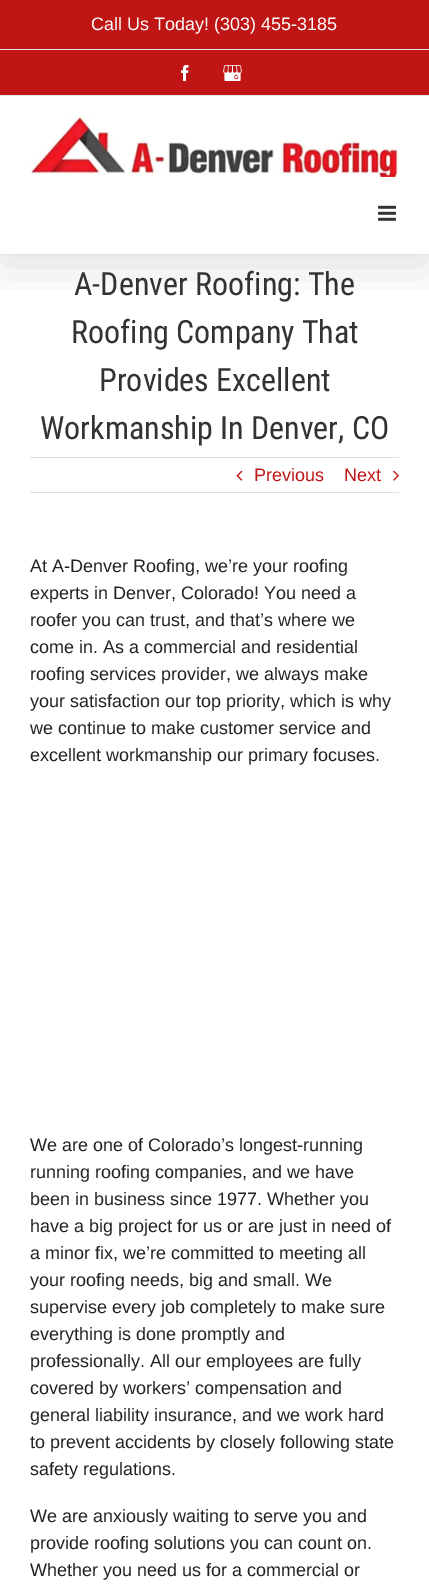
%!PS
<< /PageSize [429 1591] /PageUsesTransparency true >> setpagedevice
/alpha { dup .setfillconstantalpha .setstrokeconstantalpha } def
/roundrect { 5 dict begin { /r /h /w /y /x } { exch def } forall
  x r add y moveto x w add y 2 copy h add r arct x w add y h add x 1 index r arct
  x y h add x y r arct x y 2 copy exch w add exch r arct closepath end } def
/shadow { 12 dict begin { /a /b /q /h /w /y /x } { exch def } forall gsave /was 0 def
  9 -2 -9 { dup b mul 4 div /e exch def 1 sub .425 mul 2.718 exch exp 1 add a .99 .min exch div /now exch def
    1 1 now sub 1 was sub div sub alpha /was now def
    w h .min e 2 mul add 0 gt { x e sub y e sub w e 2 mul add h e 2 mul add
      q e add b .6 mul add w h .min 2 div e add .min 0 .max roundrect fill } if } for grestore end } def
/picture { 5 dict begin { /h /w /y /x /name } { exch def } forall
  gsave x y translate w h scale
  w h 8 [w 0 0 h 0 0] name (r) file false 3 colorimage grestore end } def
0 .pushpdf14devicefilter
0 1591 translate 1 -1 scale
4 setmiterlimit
1 setgray
0 0 429 1591 rectfill
gsave
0 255 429 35 rectclip
0 setgray
2 12 425 251 0 25 0.14 shadow
grestore
0.749 0.082 0.082 setrgbcolor
0 0 429 95 rectfill
0.898 setgray
0 95 429 1 rectfill
0 49 429 1 rectfill
/LiberationSans-Regular [18 0 0 -18 0 0] selectfont
1 setgray
91 30 moveto (Call Us Today! \(303\) 455-3185) show
(img1.rgb) 181 65 8 16 picture
(img2.rgb) 223 65 19 16 picture
0.898 setgray
0 254 429 1 rectfill
(img3.rgb) 30 116 369 61 picture
(img4.rgb) 378 205 18 16 picture
/RobotoCondensed-Regular [32 0 0 -32 0 0] selectfont
0.2 setgray
74 295 moveto (A-Denver Roofing: The) show
71 343 moveto (Roofing Company That) show
99 391 moveto (Provides Excellent) show
40 439 moveto (Workmanship In Denver, CO) show
0.878 0.871 0.871 setrgbcolor
30 457 369 1 rectfill
30 492 369 1 rectfill
(img5.rgb) 236 470 7 11 picture
/LiberationSans-Regular [18 0 0 -18 0 0] selectfont
0.749 0.082 0.082 setrgbcolor
254 481 moveto (Previous) show
344 481 moveto (Next) show
(img6.rgb) 393 470 6 11 picture
0.133 setgray
30 572 moveto (At A-Denver Roofing, we’re your roofing) show
30 599 moveto (experts in Denver, Colorado! You need a) show
30 626 moveto (roofer you can trust, and that’s where we) show
30 653 moveto (come in. As a commercial and residential) show
30 680 moveto (roofing services provider, we always make) show
30 707 moveto (your satisfaction our top priority, which is why) show
30 734 moveto (we continue to make customer service and) show
30 761 moveto (excellent workmanship our primary focuses.) show
30 1151 moveto (We are one of Colorado’s longest-running) show
30 1178 moveto (running roofing companies, and we have) show
30 1205 moveto (been in business since 1977. Whether you) show
30 1232 moveto (have a big project for us or are just in need of) show
30 1259 moveto (a minor fix, we’re committed to meeting all) show
30 1286 moveto (your roofing needs, big and small. We) show
30 1313 moveto (supervise every job completely to make sure) show
30 1340 moveto (everything is done promptly and) show
30 1367 moveto (professionally. All our employees are fully) show
30 1394 moveto (covered by workers’ compensation and) show
30 1421 moveto (general liability insurance, and we work hard) show
30 1448 moveto (to prevent accidents by closely following state) show
30 1475 moveto (safety regulations.) show
30 1522 moveto (We are anxiously waiting to serve you and) show
30 1549 moveto (provide roofing solutions you can count on.) show
30 1576 moveto (Whether you need us for a commercial or) show
.poppdf14devicefilter showpage
